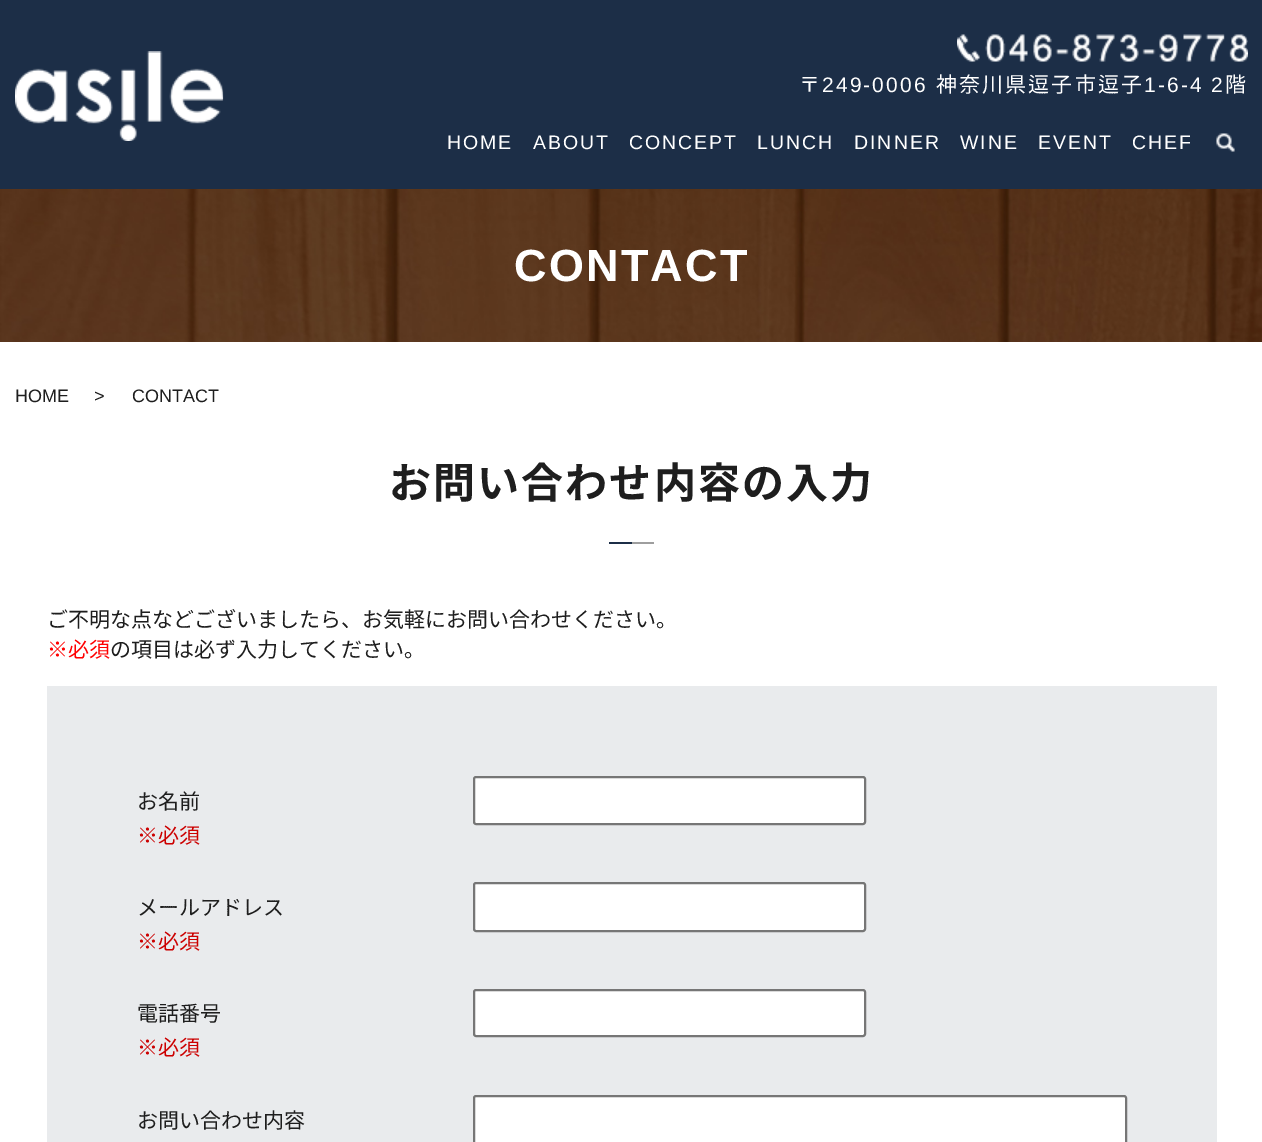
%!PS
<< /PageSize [1262 1142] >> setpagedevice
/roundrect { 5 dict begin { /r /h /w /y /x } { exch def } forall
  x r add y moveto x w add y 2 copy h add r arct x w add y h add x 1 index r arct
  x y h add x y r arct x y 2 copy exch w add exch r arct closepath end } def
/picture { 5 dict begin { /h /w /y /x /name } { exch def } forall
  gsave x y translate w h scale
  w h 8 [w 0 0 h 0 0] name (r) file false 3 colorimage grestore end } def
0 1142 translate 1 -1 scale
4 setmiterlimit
1 setgray
0 0 1262 1142 rectfill
0.11 0.18 0.278 setrgbcolor
0 0 1262 189 rectfill
(img1.rgb) 957 34 291 28 picture
/NotoSansJP-Regular [21 0 0 -21 0 0] selectfont
1 setgray
799 92 moveto 2.1 0 (〒) ashow
/LiberationSans-Regular [21 0 0 -21 0 0] selectfont
822 92 moveto 2.1 0 (249-0006) ashow
/NotoSansJP-Regular [21 0 0 -21 0 0] selectfont
936 92 moveto 2.1 0 (神奈川県逗子市逗子) ashow
/LiberationSans-Regular [21 0 0 -21 0 0] selectfont
1144 92 moveto 2.1 0 (1-6-4 2) ashow
/NotoSansJP-Regular [21 0 0 -21 0 0] selectfont
1225 92 moveto 2.1 0 (階) ashow
(img2.rgb) 15 51 209 90 picture
/LiberationSans-Regular [19.5 0 0 -19.5 0 0] selectfont
447 149 moveto 2 0 (HOME) ashow
533 149 moveto 2 0 (ABOUT) ashow
629 149 moveto 2 0 (CONCEPT) ashow
757 149 moveto 2 0 (LUNCH) ashow
854 149 moveto 2 0 (DINNER) ashow
960 149 moveto 2 0 (WINE) ashow
1038 149 moveto 2 0 (EVENT) ashow
1132 149 moveto 2 0 (CHEF) ashow
(img3.rgb) 1216 133 19 19 picture
(img4.rgb) 0 189 1262 153 picture
/LiberationSans-Bold [45 0 0 -45 0 0] selectfont
514 281 moveto 2.25 0 (CONTACT) ashow
/LiberationSans-Regular [18 0 0 -18 0 0] selectfont
0.118 setgray
15 402 moveto (HOME) show
94 402 moveto (>) show
132 402 moveto (CONTACT) show
/NotoSansJP-Bold [42 0 0 -42 0 0] selectfont
389 498 moveto 2.1 0 (お問い合わせ内容の入力) ashow
0.11 0.18 0.278 setrgbcolor
609 542 23 2 rectfill
0.62 setgray
632 542 22 2 rectfill
/NotoSansJP-Regular [21 0 0 -21 0 0] selectfont
0.118 setgray
47 627 moveto (ご不明な点などございましたら、お気軽にお問い合わせください。) show
1 0 0 setrgbcolor
47 657 moveto (※必須) show
0.118 setgray
110 657 moveto (の項目は必ず入力してください。) show
0.914 0.922 0.929 setrgbcolor
47 686 1170 456 rectfill
0.118 setgray
137 809 moveto (お名前) show
0.8 0 0 setrgbcolor
137 843 moveto (※必須) show
1 setgray
474 777 391 47 2 roundrect gsave fill grestore
0.463 setgray
2 setlinewidth
stroke
0.118 setgray
137 915 moveto (メールアドレス) show
0.8 0 0 setrgbcolor
137 949 moveto (※必須) show
1 setgray
474 883 391 48 2 roundrect gsave fill grestore
0.463 setgray
stroke
0.118 setgray
137 1021 moveto (電話番号) show
0.8 0 0 setrgbcolor
137 1055 moveto (※必須) show
1 setgray
474 990 391 46 2 roundrect gsave fill grestore
0.463 setgray
stroke
0.118 setgray
137 1128 moveto (お問い合わせ内容) show
1 setgray
474 1096 652 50 2 roundrect gsave fill grestore
0.463 setgray
stroke
showpage
